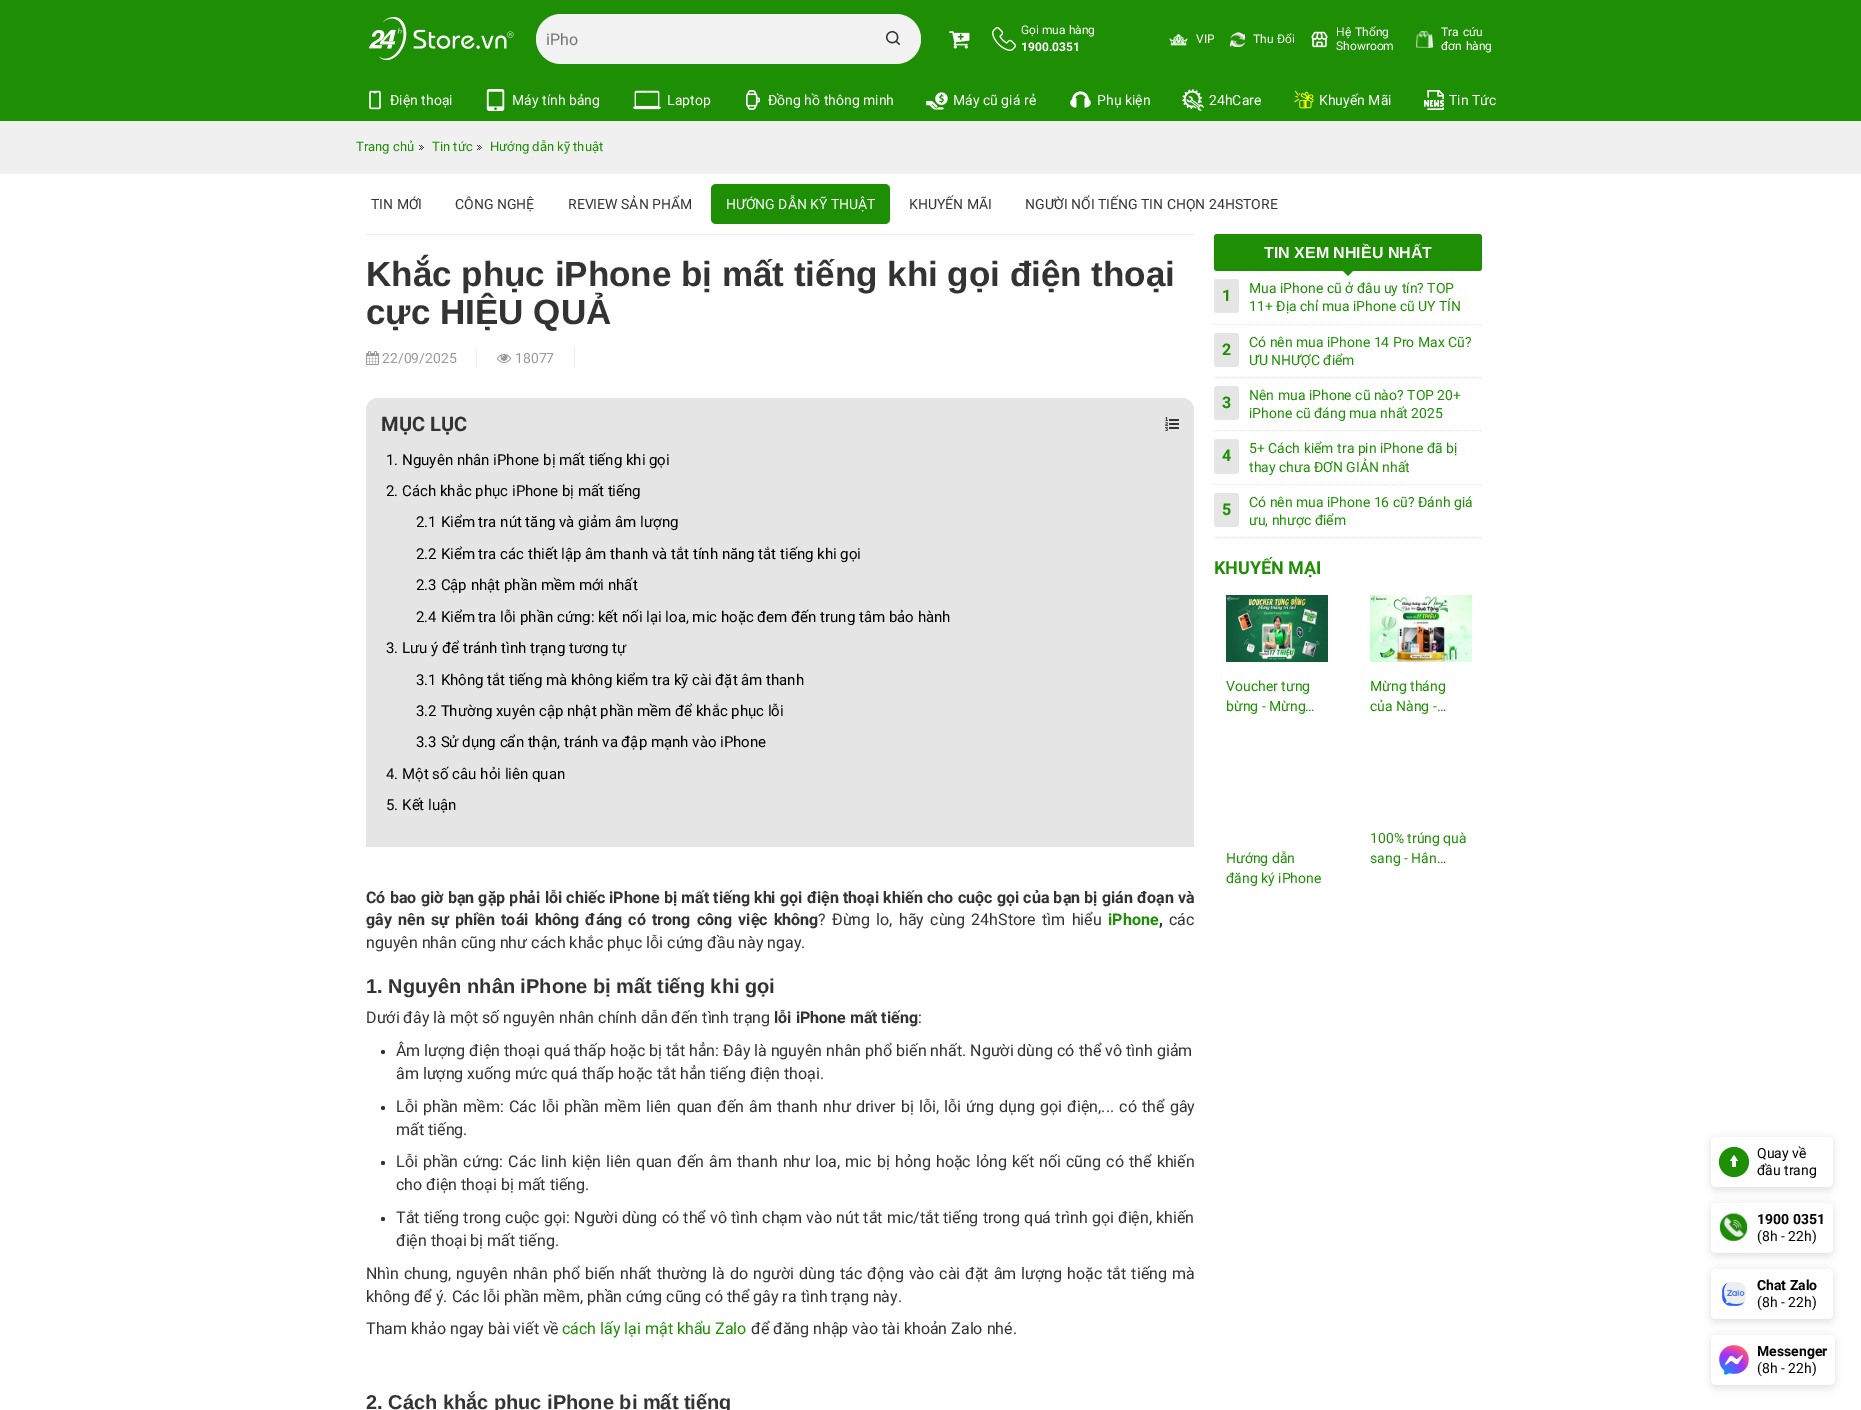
%!PS
<< /PageSize [1861 1410] /PageUsesTransparency true >> setpagedevice
/alpha { dup .setfillconstantalpha .setstrokeconstantalpha } def
/roundrect { 5 dict begin { /r /h /w /y /x } { exch def } forall
  x r add y moveto x w add y 2 copy h add r arct x w add y h add x 1 index r arct
  x y h add x y r arct x y 2 copy exch w add exch r arct closepath end } def
/shadow { 12 dict begin { /a /b /q /h /w /y /x } { exch def } forall gsave /was 0 def
  9 -2 -9 { dup b mul 4 div /e exch def 1 sub .425 mul 2.718 exch exp 1 add a .99 .min exch div /now exch def
    1 1 now sub 1 was sub div sub alpha /was now def
    w h .min e 2 mul add 0 gt { x e sub y e sub w e 2 mul add h e 2 mul add
      q e add b .6 mul add w h .min 2 div e add .min 0 .max roundrect fill } if } for grestore end } def
/picture { 5 dict begin { /h /w /y /x /name } { exch def } forall
  gsave x y translate w h scale
  w h 8 [w 0 0 h 0 0] name (r) file false 3 colorimage grestore end } def
0 .pushpdf14devicefilter
0 1410 translate 1 -1 scale
4 setmiterlimit
0.941 setgray
0 0 1861 1410 rectfill
0.118 0.557 0.016 setrgbcolor
0 0 1861 121 rectfill
(img1.rgb) 369 17 145 43 picture
0.949 setgray
536 14 385 50 25 roundrect fill
/Roboto-Regular [16 0 0 -16 0 0] selectfont
0.459 setgray
546 45 moveto (iPho) show
(img2.rgb) 886 31 14 14 picture
(img3.rgb) 949 31 21 18 picture
(img4.rgb) 992 27 24 24 picture
/Roboto-Regular [12 0 0 -12 0 0] selectfont
1 setgray
1021 34 moveto (Gọi mua hàng) show
/Roboto-Bold [12 0 0 -12 0 0] selectfont
1021 51 moveto (1900.0351) show
(img5.rgb) 1169 33 19 13 picture
/Roboto-Regular [12 0 0 -12 0 0] selectfont
1196 43 moveto (VIP) show
(img6.rgb) 1230 32 15 15 picture
1253 43 moveto 1 0 32 (Thu Đổi) widthshow
(img7.rgb) 1311 31 17 17 picture
1336 36 moveto 1 0 32 (Hệ Thống) widthshow
1336 50 moveto (Showroom) show
(img8.rgb) 1416 31 17 17 picture
1441 36 moveto 1 0 32 (Tra cứu) widthshow
1441 50 moveto 1 0 32 (đơn hàng) widthshow
(img9.rgb) 369 90 12 20 picture
/Roboto-Regular [14 0 0 -14 0 0] selectfont
390 105 moveto (Điện thoại) show
(img10.rgb) 486 89 19 22 picture
512 105 moveto (Máy tính bảng) show
(img11.rgb) 633 90 28 20 picture
667 105 moveto (Laptop) show
(img12.rgb) 746 90 14 20 picture
768 105 moveto (Đồng hồ thông minh) show
(img13.rgb) 926 92 22 18 picture
953 105 moveto (Máy cũ giá rẻ) show
(img14.rgb) 1070 91 21 17 picture
1097 105 moveto (Phụ kiện) show
(img15.rgb) 1182 89 22 22 picture
1209 105 moveto (24hCare) show
(img16.rgb) 1294 90 20 19 picture
1319 105 moveto (Khuyến Mãi) show
(img17.rgb) 1424 90 20 20 picture
1449 105 moveto (Tin Tức) show
/Roboto-Regular [13 0 0 -13 0 0] selectfont
0.118 0.557 0.016 setrgbcolor
356 151 moveto (Trang chủ) show
(img18.rgb) 419 145 5 5 picture
432 151 moveto (Tin tức) show
(img18.rgb) 477 145 5 5 picture
490 151 moveto (Hướng dẫn kỹ thuật) show
1 setgray
0 174 1861 1236 rectfill
/Roboto-Regular [14 0 0 -14 0 0] selectfont
0.2 setgray
371 209 moveto (TIN MỚI) show
455 209 moveto (CÔNG NGHỆ) show
568 209 moveto (REVIEW SẢN PHẨM) show
0.118 0.557 0.016 setrgbcolor
711 184 179 40 5 roundrect fill
1 setgray
726 209 moveto (HƯỚNG DẪN KỸ THUẬT) show
0.2 setgray
909 209 moveto (KHUYẾN MÃI) show
1025 209 moveto (NGƯỜI NỔI TIẾNG TIN CHỌN 24HSTORE) show
0.933 setgray
366 234 828 1 rectfill
/LiberationSans-Bold [35 0 0 -35 0 0] selectfont
0.2 setgray
366 286 moveto (Khắc phục iPhone bị mất tiếng khi gọi điện thoại) show
366 324 moveto (cực HIỆU QUẢ) show
0.933 setgray
476 348 1 20 rectfill
(img19.rgb) 366 351 13 14 picture
/Roboto-Regular [14 0 0 -14 0 0] selectfont
0.6 setgray
382 363 moveto (22/09/2025) show
0.933 setgray
574 348 1 20 rectfill
(img20.rgb) 497 354 14 9 picture
0.6 setgray
515 363 moveto (18077) show
0.898 setgray
newpath 378 398 moveto 1182 398 lineto 1188.5 398 1194 403.5 1194 410 curveto 1194 450 lineto 366 450 lineto 366 410 lineto 366 403.5 371.5 398 378 398 curveto closepath fill
/Roboto-Bold [20 0 0 -20 0 0] selectfont
0.2 setgray
381 431 moveto (MỤC LỤC) show
(img21.rgb) 1165 417 14 14 picture
0.898 setgray
366 450 828 397 rectfill
/Roboto-Regular [15 0 0 -15 0 0] selectfont
0 setgray
386 465 moveto (1. Nguyên nhân iPhone bị mất tiếng khi gọi) show
386 496 moveto (2. Cách khắc phục iPhone bị mất tiếng) show
416 527 moveto (2.1 Kiểm tra nút tăng và giảm âm lượng) show
416 559 moveto (2.2 Kiểm tra các thiết lập âm thanh và tắt tính năng tắt tiếng khi gọi) show
416 590 moveto (2.3 Cập nhật phần mềm mới nhất) show
416 622 moveto (2.4 Kiểm tra lỗi phần cứng: kết nối lại loa, mic hoặc đem đến trung tâm bảo hành) show
386 653 moveto (3. Lưu ý để tránh tình trạng tương tự) show
416 685 moveto (3.1 Không tắt tiếng mà không kiểm tra kỹ cài đặt âm thanh) show
416 716 moveto (3.2 Thường xuyên cập nhật phần mềm để khắc phục lỗi) show
416 747 moveto (3.3 Sử dụng cẩn thận, tránh va đập mạnh vào iPhone) show
386 779 moveto (4. Một số câu hỏi liên quan) show
386 810 moveto (5. Kết luận) show
/Roboto-Bold [16 0 0 -16 0 0] selectfont
0.2 setgray
366 903 moveto 0.3 0 32 (Có bao giờ bạn gặp phải lỗi chiếc iPhone bị mất tiếng khi gọi điện thoại khiến cho cuộc gọi của bạn bị gián đoạn và) widthshow
366 925 moveto 2.25 0 32 (gây nên sự phiền toái không đáng có trong công việc không) widthshow
/Roboto-Regular [16 0 0 -16 0 0] selectfont
818 925 moveto 2.25 0 32 (? Đừng lo, hãy cùng 24hStore tìm hiểu) widthshow
/Roboto-Bold [16 0 0 -16 0 0] selectfont
0.118 0.557 0.016 setrgbcolor
1108 925 moveto (iPhone) show
0.2 setgray
1159 925 moveto (,) show
/Roboto-Regular [16 0 0 -16 0 0] selectfont
1169 925 moveto (các) show
366 948 moveto (nguyên nhân cũng như cách khắc phục lỗi cứng đầu này ngay.) show
/LiberationSans-Bold [20 0 0 -20 0 0] selectfont
366 993 moveto (1. Nguyên nhân iPhone bị mất tiếng khi gọi) show
/Roboto-Regular [16 0 0 -16 0 0] selectfont
366 1023 moveto (Dưới đây là một số nguyên nhân chính dẫn đến tình trạng) show
/Roboto-Bold [16 0 0 -16 0 0] selectfont
774 1023 moveto (lỗi iPhone mất tiếng) show
/Roboto-Regular [16 0 0 -16 0 0] selectfont
918 1023 moveto (:) show
newpath 383 1052 2 0 360 arc closepath fill
396 1056 moveto (Âm lượng điện thoại quá thấp hoặc bị tắt hẳn: Đây là nguyên nhân phổ biến nhất. Người dùng có thể vô tình giảm) show
396 1079 moveto (âm lượng xuống mức quá thấp hoặc tắt hẳn tiếng điện thoại.) show
newpath 383 1108 2 0 360 arc closepath fill
396 1112 moveto 1.25 0 32 (Lỗi phần mềm: Các lỗi phần mềm liên quan đến âm thanh như driver bị lỗi, lỗi ứng dụng gọi điện,... có thể gây) widthshow
396 1135 moveto (mất tiếng.) show
newpath 383 1163 2 0 360 arc closepath fill
396 1167 moveto 1.2 0 32 (Lỗi phần cứng: Các linh kiện liên quan đến âm thanh như loa, mic bị hỏng hoặc lỏng kết nối cũng có thể khiến) widthshow
396 1190 moveto (cho điện thoại bị mất tiếng.) show
newpath 383 1219 2 0 360 arc closepath fill
396 1223 moveto 0.25 0 32 (Tắt tiếng trong cuộc gọi: Người dùng có thể vô tình chạm vào nút tắt mic/tắt tiếng trong quá trình gọi điện, khiến) widthshow
396 1246 moveto (điện thoại bị mất tiếng.) show
366 1279 moveto 1.05 0 32 (Nhìn chung, nguyên nhân phổ biến nhất thường là do người dùng tác động vào cài đặt âm lượng hoặc tắt tiếng mà) widthshow
366 1302 moveto (không để ý. Các lỗi phần mềm, phần cứng cũng có thể gây ra tình trạng này.) show
366 1334 moveto (Tham khảo ngay bài viết về) show
0.118 0.557 0.016 setrgbcolor
562 1334 moveto (cách lấy lại mật khẩu Zalo) show
0.2 setgray
751 1334 moveto (để đăng nhập vào tài khoản Zalo nhé.) show
/LiberationSans-Bold [20 0 0 -20 0 0] selectfont
366 1409 moveto (2. Cách khắc phục iPhone bị mất tiếng) show
0.118 0.557 0.016 setrgbcolor
1214 234 268 37 3 roundrect fill
/LiberationSans-Bold [16 0 0 -16 0 0] selectfont
1 setgray
1264 258 moveto (TIN XEM NHIỀU NHẤT) show
0.118 0.557 0.016 setrgbcolor
newpath 1343 271 moveto 1353 271 lineto 1348 276 lineto closepath fill
0.898 setgray
[1 1] 0 setdash
newpath 1214 324.5 moveto 1482 324.5 lineto stroke
1214 279 25 34 3 roundrect fill
/Roboto-Bold [16 0 0 -16 0 0] selectfont
0.118 0.557 0.016 setrgbcolor
1222 301 moveto (1) show
/Roboto-Regular [14 0 0 -14 0 0] selectfont
1249 293 moveto (Mua iPhone cũ ở đâu uy tín? TOP) show
1249 311 moveto (11+ Địa chỉ mua iPhone cũ UY TÍN) show
0.898 setgray
newpath 1214 377.5 moveto 1482 377.5 lineto stroke
1214 333 25 34 3 roundrect fill
/Roboto-Bold [16 0 0 -16 0 0] selectfont
0.118 0.557 0.016 setrgbcolor
1222 355 moveto (2) show
/Roboto-Regular [14 0 0 -14 0 0] selectfont
1249 347 moveto (Có nên mua iPhone 14 Pro Max Cũ?) show
1249 365 moveto (ƯU NHƯỢC điểm) show
0.898 setgray
newpath 1214 430.5 moveto 1482 430.5 lineto stroke
1214 386 25 34 3 roundrect fill
/Roboto-Bold [16 0 0 -16 0 0] selectfont
0.118 0.557 0.016 setrgbcolor
1222 408 moveto (3) show
/Roboto-Regular [14 0 0 -14 0 0] selectfont
1249 400 moveto (Nên mua iPhone cũ nào? TOP 20+) show
1249 418 moveto (iPhone cũ đáng mua nhất 2025) show
0.898 setgray
newpath 1214 484.5 moveto 1482 484.5 lineto stroke
1214 439 25 35 3 roundrect fill
/Roboto-Bold [16 0 0 -16 0 0] selectfont
0.118 0.557 0.016 setrgbcolor
1222 461 moveto (4) show
/Roboto-Regular [14 0 0 -14 0 0] selectfont
1249 453 moveto (5+ Cách kiểm tra pin iPhone đã bị) show
1249 472 moveto (thay chưa ĐƠN GIẢN nhất) show
0.898 setgray
newpath 1214 537.5 moveto 1482 537.5 lineto stroke
1214 493 25 34 3 roundrect fill
/Roboto-Bold [16 0 0 -16 0 0] selectfont
0.118 0.557 0.016 setrgbcolor
1222 515 moveto (5) show
/Roboto-Regular [14 0 0 -14 0 0] selectfont
1249 507 moveto (Có nên mua iPhone 16 cũ? Đánh giá) show
1249 525 moveto (ưu, nhược điểm) show
/Roboto-Bold [18 0 0 -18 0 0] selectfont
1214 574 moveto (KHUYẾN MẠI) show
(img22.rgb) 1226 595 102 67 picture
/Roboto-Regular [14 0 0 -14 0 0] selectfont
1226 691 moveto (Voucher tưng) show
1226 711 moveto (bừng - Mừng…) show
(img23.rgb) 1370 595 102 67 picture
1370 691 moveto (Mừng tháng) show
1370 711 moveto (của Nàng -…) show
1226 863 moveto (Hướng dẫn) show
1226 883 moveto (đăng ký iPhone) show
1370 843 moveto (100% trúng quà) show
1370 863 moveto (sang - Hân…) show
0 setgray
1711 1141 122 50 5 4 0.07 shadow
1711 1137 122 50 5 4 0.05 shadow
1 setgray
1711 1137 122 50 5 roundrect fill
0.118 0.557 0.016 setrgbcolor
newpath 1734 1162 15 0 360 arc closepath fill
1 setgray
newpath 1734 1155 moveto 1730 1161 lineto 1732 1161 lineto 1732 1167 lineto 1736 1167 lineto 1736 1161 lineto 1738 1161 lineto closepath fill
0 setgray
1757 1158 moveto (Quay về) show
1757 1175 moveto (đầu trang) show
1711 1207 122 50 5 4 0.07 shadow
1711 1203 122 50 5 4 0.05 shadow
1 setgray
1711 1203 122 50 5 roundrect fill
(img24.rgb) 1719 1213 29 28 picture
/Roboto-Bold [14 0 0 -14 0 0] selectfont
0 setgray
1757 1224 moveto (1900 0351) show
/Roboto-Regular [14 0 0 -14 0 0] selectfont
1757 1241 moveto (\(8h - 22h\)) show
1711 1273 122 50 5 4 0.07 shadow
1711 1269 122 50 5 4 0.05 shadow
1 setgray
1711 1269 122 50 5 roundrect fill
(img25.rgb) 1722 1282 24 24 picture
/Roboto-Bold [14 0 0 -14 0 0] selectfont
0 setgray
1757 1290 moveto (Chat Zalo) show
/Roboto-Regular [14 0 0 -14 0 0] selectfont
1757 1307 moveto (\(8h - 22h\)) show
1711 1339 124 50 5 4 0.07 shadow
1711 1335 124 50 5 4 0.05 shadow
1 setgray
1711 1335 124 50 5 roundrect fill
(img26.rgb) 1719 1345 30 30 picture
/Roboto-Bold [14 0 0 -14 0 0] selectfont
0 setgray
1757 1356 moveto (Messenger) show
/Roboto-Regular [14 0 0 -14 0 0] selectfont
1757 1373 moveto (\(8h - 22h\)) show
.poppdf14devicefilter showpage
